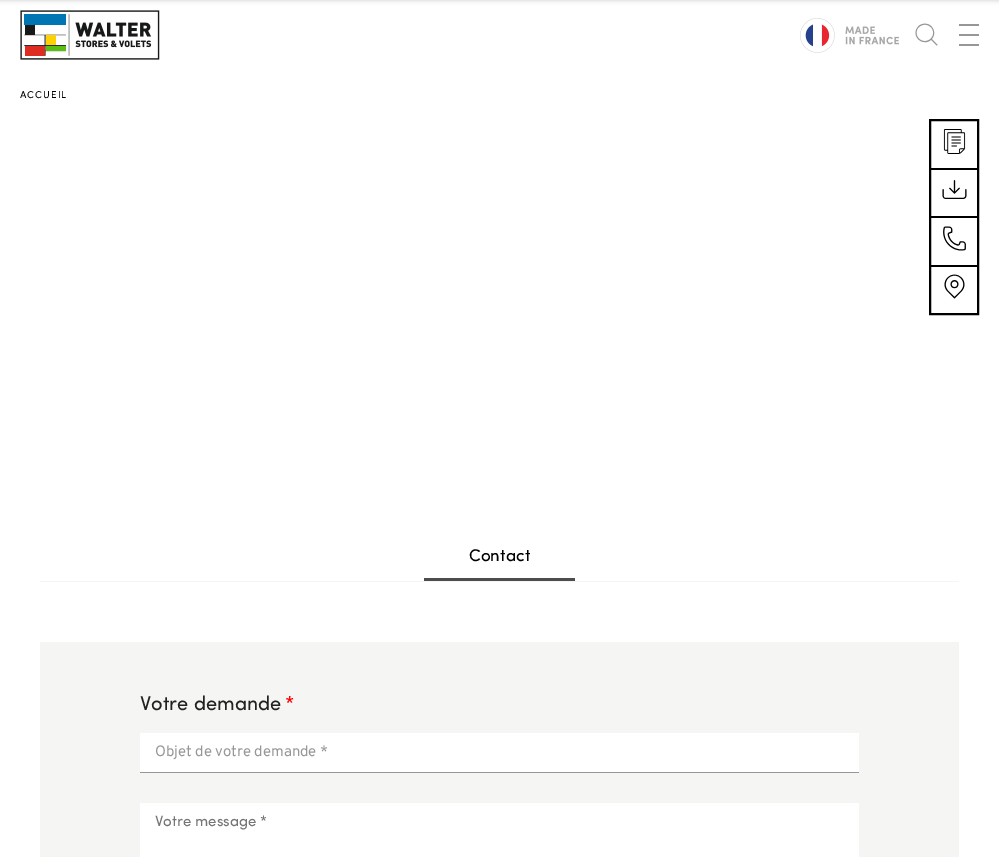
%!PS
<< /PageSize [999 857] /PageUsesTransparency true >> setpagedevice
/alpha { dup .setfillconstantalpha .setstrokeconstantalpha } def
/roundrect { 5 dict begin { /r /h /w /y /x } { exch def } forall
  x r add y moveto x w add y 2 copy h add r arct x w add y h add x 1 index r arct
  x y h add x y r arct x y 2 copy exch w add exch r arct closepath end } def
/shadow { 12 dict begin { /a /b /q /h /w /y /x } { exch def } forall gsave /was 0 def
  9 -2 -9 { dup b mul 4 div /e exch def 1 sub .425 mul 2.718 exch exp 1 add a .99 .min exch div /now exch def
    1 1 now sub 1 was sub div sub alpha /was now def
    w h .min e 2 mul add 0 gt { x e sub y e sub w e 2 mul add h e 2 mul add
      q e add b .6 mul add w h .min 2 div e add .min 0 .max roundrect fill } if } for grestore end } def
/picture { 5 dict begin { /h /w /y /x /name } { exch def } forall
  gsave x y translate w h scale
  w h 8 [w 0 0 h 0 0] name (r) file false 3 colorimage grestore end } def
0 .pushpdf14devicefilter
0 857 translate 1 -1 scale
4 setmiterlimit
1 setgray
0 0 999 857 rectfill
0 setgray
0 -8 999 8 0 2.5 0.2 shadow
(img1.rgb) 20 10 140 50 picture
(img2.rgb) 800 18 99 35 picture
(img3.rgb) 915 23 23 23 picture
0.592 setgray
959 34 20 2 rectfill
959 24 20 2 rectfill
959 44 20 2 rectfill
/Sofia-Regular [10 0 0 -10 0 0] selectfont
0 setgray
20 98 moveto 1 0 (ACCUEIL) ashow
0.961 0.961 0.957 setrgbcolor
40 581 919 1 rectfill
0.302 setgray
424 578 151 3 rectfill
/Sofia-Regular [17 0 0 -17 0 0] selectfont
0 setgray
469 561 moveto (Contact) show
0.961 0.961 0.957 setrgbcolor
40 642 919 215 rectfill
/Sofia-Regular [20 0 0 -20 0 0] selectfont
0.133 setgray
140 710 moveto (Votre demande) show
1 0 0 setrgbcolor
285 710 moveto (*) show
1 setgray
140 733 719 39 rectfill
0.592 setgray
140 772 719 1 rectfill
/Overpass-Regular [15 0 0 -15 0 0] selectfont
155 756 moveto (Objet de votre demande *) show
1 setgray
140 803 719 54 rectfill
/Sofia-Regular [15 0 0 -15 0 0] selectfont
0.459 setgray
155 826 moveto (Votre message *) show
0 setgray
2 setlinewidth
930 120 48 194 rectstroke
(img4.rgb) 943 129 23 25 picture
931 168 46 2 rectfill
(img5.rgb) 942 180 25 19 picture
931 216 46 2 rectfill
(img6.rgb) 943 226 23 25 picture
931 265 46 2 rectfill
(img7.rgb) 944 274 21 25 picture
.poppdf14devicefilter showpage
